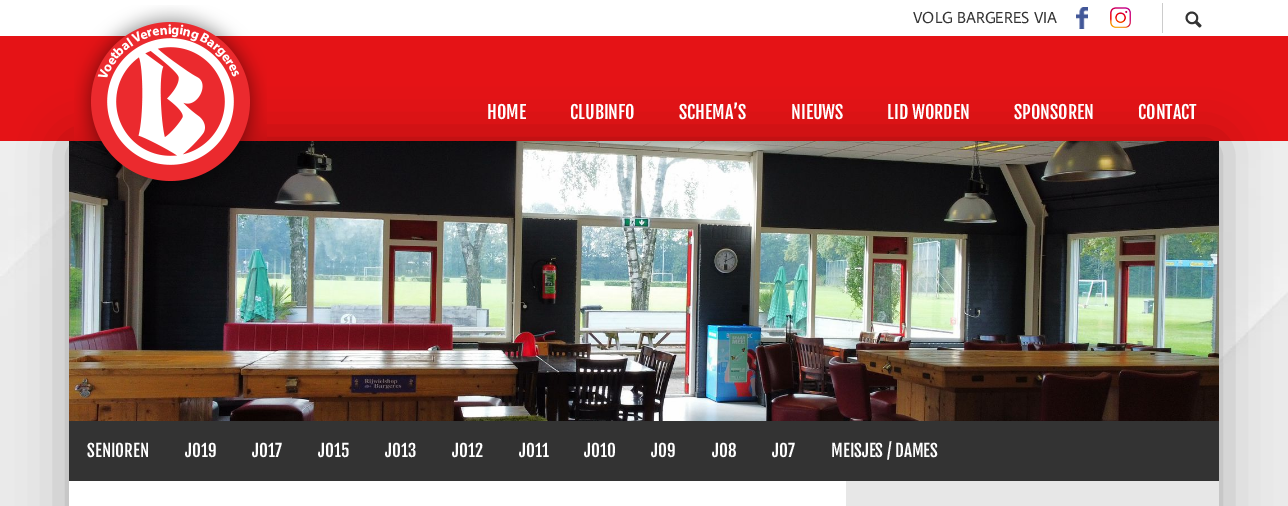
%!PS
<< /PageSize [1288 506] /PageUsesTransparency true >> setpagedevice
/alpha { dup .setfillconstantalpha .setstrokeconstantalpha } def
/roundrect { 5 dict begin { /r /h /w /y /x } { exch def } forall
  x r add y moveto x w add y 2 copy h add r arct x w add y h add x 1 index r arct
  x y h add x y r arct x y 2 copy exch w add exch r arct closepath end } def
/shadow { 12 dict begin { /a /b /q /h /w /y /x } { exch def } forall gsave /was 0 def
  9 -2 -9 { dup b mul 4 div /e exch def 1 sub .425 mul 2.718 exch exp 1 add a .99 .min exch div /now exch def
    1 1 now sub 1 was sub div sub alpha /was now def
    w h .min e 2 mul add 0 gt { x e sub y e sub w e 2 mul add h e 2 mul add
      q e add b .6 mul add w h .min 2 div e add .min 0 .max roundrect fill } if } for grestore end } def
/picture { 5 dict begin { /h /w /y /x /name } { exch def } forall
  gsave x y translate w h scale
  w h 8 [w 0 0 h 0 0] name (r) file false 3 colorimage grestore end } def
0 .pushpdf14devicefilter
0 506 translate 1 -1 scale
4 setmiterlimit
1 setgray
0 0 1288 506 rectfill
(img1.rgb) 0 141 1288 365 picture
0.8 setgray
1162 3 1 30 rectfill
/AverageSans-Regular [16 0 0 -16 0 0] selectfont
0.2 setgray
913 23 moveto (VOLG BARGERES VIA) show
(img2.rgb) 1076 7 12 22 picture
(img3.rgb) 1110 7 21 21 picture
(img4.rgb) 1185 11 17 17 picture
0.898 0.075 0.086 setrgbcolor
0 36 1288 105 rectfill
0 setgray
71 143 1146 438 0 25 0.3 shadow
(img6.rgb) 69 141 1150 280 picture
(img5.rgb) 74 5 193 186 picture
/FjallaOne-Regular [18 0 0 -18 0 0] selectfont
1 setgray
487 119 moveto (HOME) show
570 119 moveto (CLUBINFO) show
679 119 moveto (SCHEMA’S) show
791 119 moveto (NIEUWS) show
887 119 moveto (LID WORDEN) show
1014 119 moveto (SPONSOREN) show
1138 119 moveto (CONTACT) show
0.2 setgray
69 421 1150 60 rectfill
/FjallaOne-Regular [17 0 0 -17 0 0] selectfont
1 setgray
87 457 moveto (SENIOREN) show
185 457 moveto (JO19) show
252 457 moveto (JO17) show
318 457 moveto (JO15) show
385 457 moveto (JO13) show
452 457 moveto (JO12) show
519 457 moveto (JO11) show
584 457 moveto (JO10) show
651 457 moveto (JO9) show
712 457 moveto (JO8) show
772 457 moveto (JO7) show
831 457 moveto (MEISJES / DAMES) show
69 481 777 25 rectfill
0.906 setgray
846 481 373 25 rectfill
.poppdf14devicefilter showpage
